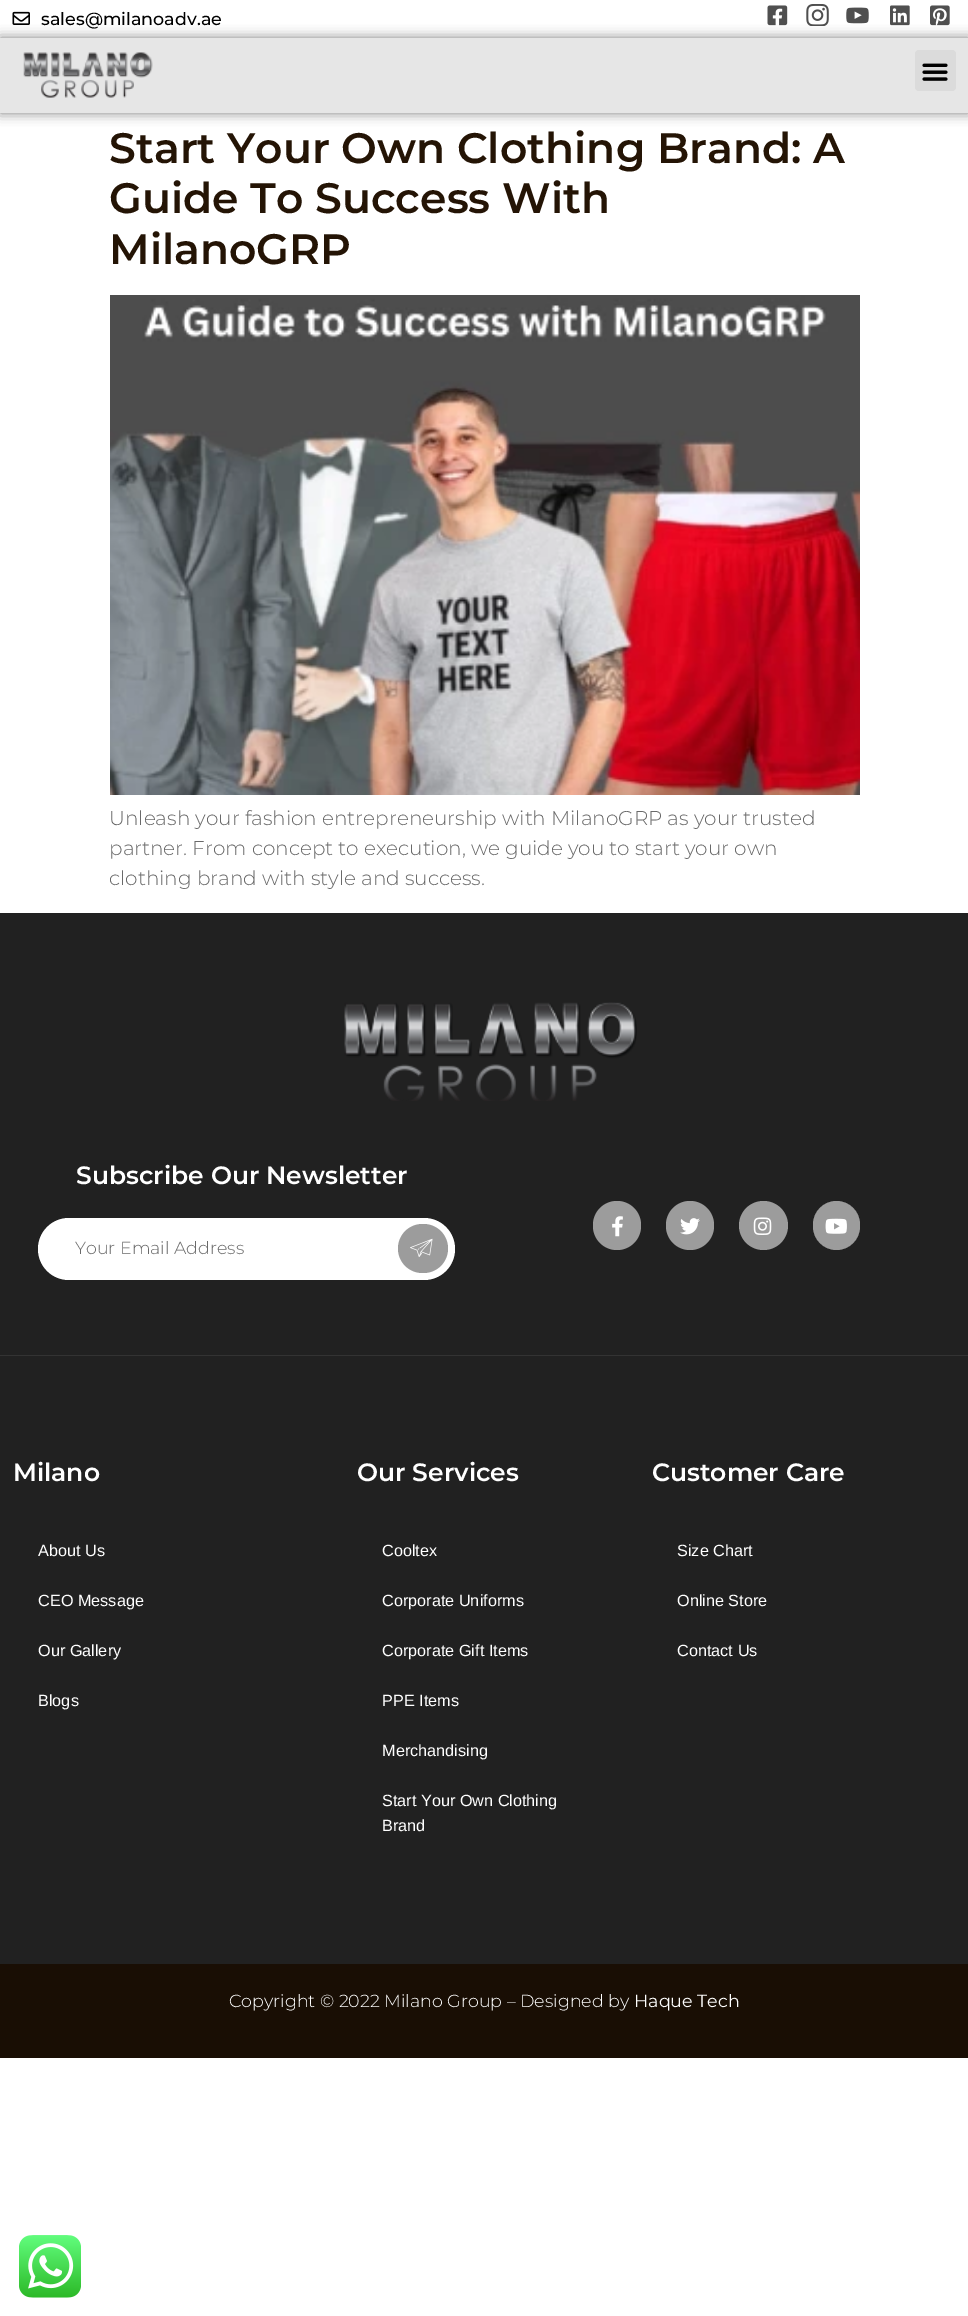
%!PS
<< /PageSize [968 2316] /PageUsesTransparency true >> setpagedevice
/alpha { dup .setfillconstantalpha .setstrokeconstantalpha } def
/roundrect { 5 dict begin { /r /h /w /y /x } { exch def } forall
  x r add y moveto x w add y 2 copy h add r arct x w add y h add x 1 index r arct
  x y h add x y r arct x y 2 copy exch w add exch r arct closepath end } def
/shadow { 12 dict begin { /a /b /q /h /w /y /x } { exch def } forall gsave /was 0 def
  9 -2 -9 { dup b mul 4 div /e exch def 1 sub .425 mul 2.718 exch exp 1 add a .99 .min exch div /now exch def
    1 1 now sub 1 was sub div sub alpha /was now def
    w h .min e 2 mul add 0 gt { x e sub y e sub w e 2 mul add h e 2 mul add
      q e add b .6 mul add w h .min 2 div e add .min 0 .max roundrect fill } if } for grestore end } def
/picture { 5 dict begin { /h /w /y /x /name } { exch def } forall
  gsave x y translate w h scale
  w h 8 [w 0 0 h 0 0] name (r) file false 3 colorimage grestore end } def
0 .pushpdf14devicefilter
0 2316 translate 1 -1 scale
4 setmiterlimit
1 setgray
0 0 968 2316 rectfill
(img1.rgb) 12 11 18 14 picture
/Montserrat-Medium [17.5 0 0 -17.5 0 0] selectfont
0 setgray
41 25 moveto (sales@milanoadv.ae) show
(img2.rgb) 767 5 21 21 picture
(img3.rgb) 806 4 23 22 picture
(img4.rgb) 846 7 23 17 picture
(img5.rgb) 890 5 20 21 picture
(img6.rgb) 930 5 20 21 picture
0 38 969 75 0 6 0.5 shadow
0.902 setgray
0 38 968 75 rectfill
(img7.rgb) 23 52 130 46 picture
0.859 setgray
915 50 41 41 4 roundrect fill
(img8.rgb) 922 63 26 18 picture
/Montserrat-SemiBold [42.5 0 0 -42.5 0 0] selectfont
0.141 0.078 0.02 setrgbcolor
109 163 moveto (Start Your Own Clothing Brand: A) show
109 213 moveto (Guide To Success With) show
109 264 moveto (MilanoGRP) show
(img9.rgb) 110 295 750 500 picture
/Montserrat-Light [20 0 0 -20 0 0] selectfont
0.412 setgray
109 825 moveto (Unleash your fashion entrepreneurship with MilanoGRP as your trusted) show
109 855 moveto (partner. From concept to execution, we guide you to start your own) show
109 885 moveto (clothing brand with style and success.) show
0.129 setgray
0 913 968 1051 rectfill
0.2 setgray
0 1355 968 1 rectfill
(img10.rgb) 344 1002 293 99 picture
/Montserrat-SemiBold [25 0 0 -25 0 0] selectfont
1 setgray
76 1184 moveto (Subscribe Our Newsletter) show
38 1218 417 62 31 roundrect fill
/Montserrat-Light [17.5 0 0 -17.5 0 0] selectfont
0.412 setgray
75 1254 moveto (Your Email Address) show
0.612 setgray
398 1224 50 49 24.5 roundrect fill
(img11.rgb) 410 1238 23 19 picture
593 1201 48 49 24 roundrect fill
(img12.rgb) 612 1216 11 21 picture
666 1201 48 49 24 roundrect fill
(img13.rgb) 680 1218 20 17 picture
newpath 763.5 1225.5 24.5 0 360 arc closepath fill
(img14.rgb) 753 1217 19 18 picture
813 1201 47 49 23.5 roundrect fill
(img15.rgb) 825 1218 22 16 picture
/Montserrat-SemiBold [25 0 0 -25 0 0] selectfont
1 setgray
13 1481 moveto (Milano) show
/LiberationSans-Regular [16.25 0 0 -16.25 0 0] selectfont
38 1556 moveto (About Us) show
38 1606 moveto (CEO Message) show
38 1656 moveto (Our Gallery) show
38 1706 moveto (Blogs) show
/Montserrat-SemiBold [25 0 0 -25 0 0] selectfont
357 1481 moveto (Our Services) show
/LiberationSans-Regular [16.25 0 0 -16.25 0 0] selectfont
382 1556 moveto (Cooltex) show
382 1606 moveto (Corporate Uniforms) show
382 1656 moveto (Corporate Gift Items) show
382 1706 moveto (PPE Items) show
382 1756 moveto (Merchandising) show
382 1806 moveto (Start Your Own Clothing) show
382 1831 moveto (Brand) show
/Montserrat-SemiBold [25 0 0 -25 0 0] selectfont
652 1481 moveto (Customer Care) show
/LiberationSans-Regular [16.25 0 0 -16.25 0 0] selectfont
677 1556 moveto (Size Chart) show
677 1606 moveto (Online Store) show
677 1656 moveto (Contact Us) show
0.098 0.055 0.016 setrgbcolor
0 1964 968 94 rectfill
/Montserrat-Light [17.5 0 0 -17.5 0 0] selectfont
1 setgray
229 2007 moveto (Copyright © 2022 Milano Group – Designed by) show
/Montserrat-Regular [17.5 0 0 -17.5 0 0] selectfont
634 2007 moveto (Haque Tech) show
(img16.rgb) 19 2235 62 63 picture
.poppdf14devicefilter showpage
